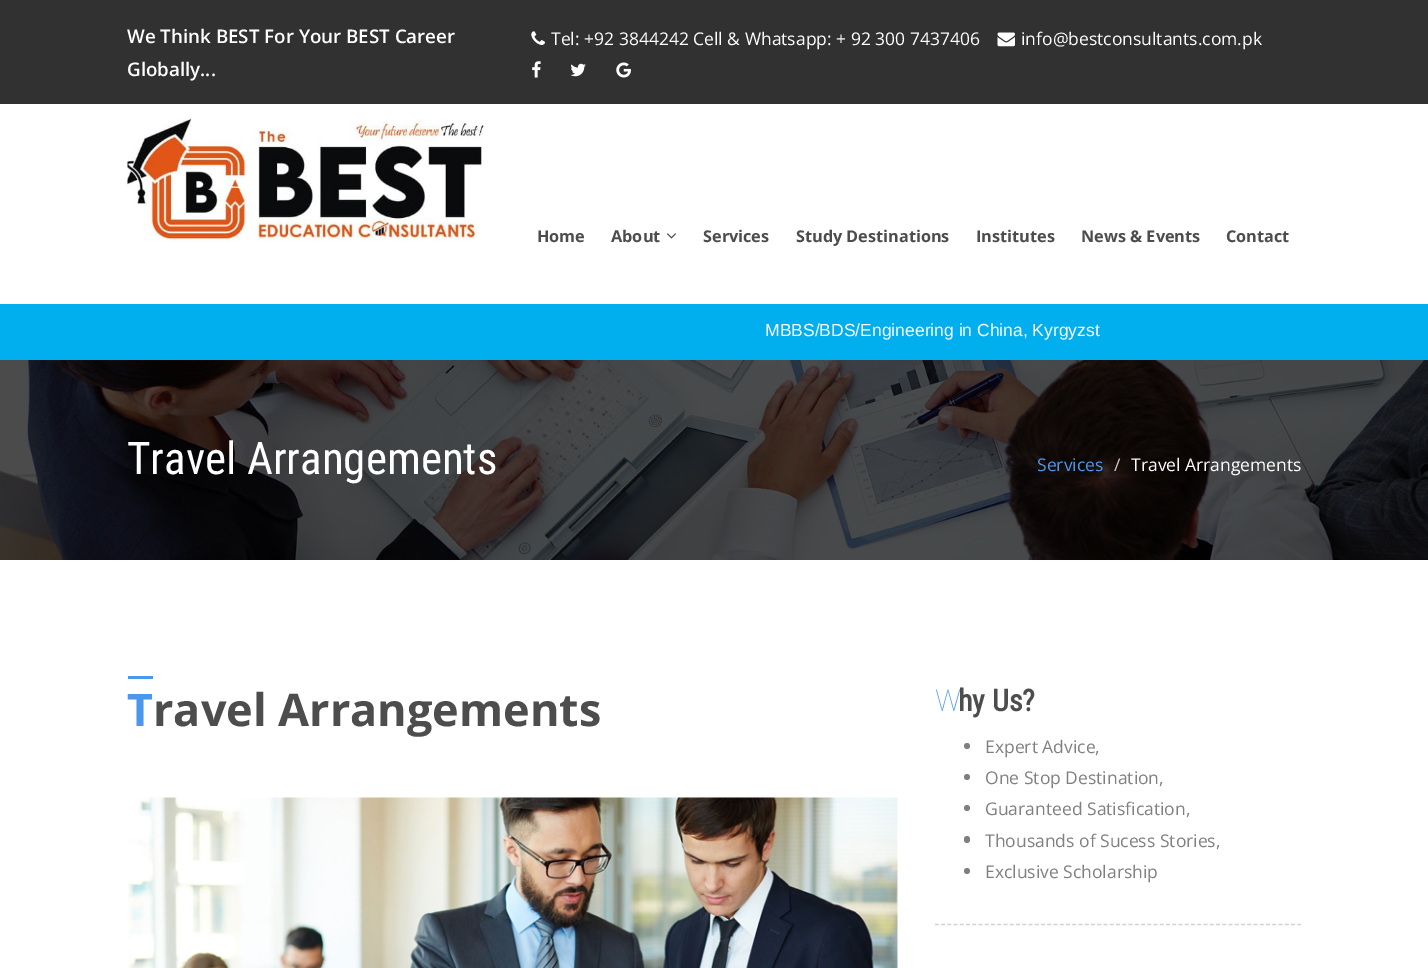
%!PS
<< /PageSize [1428 968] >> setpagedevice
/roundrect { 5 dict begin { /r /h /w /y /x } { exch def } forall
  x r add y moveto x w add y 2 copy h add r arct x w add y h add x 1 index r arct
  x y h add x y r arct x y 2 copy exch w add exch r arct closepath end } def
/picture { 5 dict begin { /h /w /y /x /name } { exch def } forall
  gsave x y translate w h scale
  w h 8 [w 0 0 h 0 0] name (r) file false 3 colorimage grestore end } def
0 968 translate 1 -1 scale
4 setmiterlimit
1 setgray
0 0 1428 968 rectfill
0.192 setgray
0 0 1428 104 rectfill
/OpenSans-SemiBold [18.75 0 0 -18.75 0 0] selectfont
1 setgray
127 43 moveto (We Think BEST For Your BEST Career) show
127 76 moveto (Globally...) show
(img1.rgb) 531 31 14 14 picture
/OpenSans-Regular [17.5 0 0 -17.5 0 0] selectfont
551 45 moveto (Tel: +92 3844242 Cell & Whatsapp: + 92 300 7437406) show
(img2.rgb) 997 32 18 15 picture
1021 45 moveto (info@bestconsultants.com.pk) show
(img3.rgb) 532 61 9 17 picture
(img4.rgb) 570 63 16 14 picture
(img5.rgb) 616 62 15 16 picture
(img6.rgb) 127 117 357 126 picture
/OpenSans-Bold [16.25 0 0 -16.25 0 0] selectfont
0.302 setgray
537 242 moveto (Home) show
611 242 moveto (About) show
(img7.rgb) 667 233 9 6 picture
703 242 moveto (Services) show
796 242 moveto (Study Destinations) show
976 242 moveto (Institutes) show
1081 242 moveto (News & Events) show
1226 242 moveto (Contact) show
0.004 0.682 0.933 setrgbcolor
0 304 1428 56 rectfill
/LiberationSans-Regular [17.5 0 0 -17.5 0 0] selectfont
1 setgray
765 336 moveto (MBBS/BDS/Engineering in China, Kyrgyzst) show
(img8.rgb) 0 360 1428 200 picture
/RobotoCondensed-Regular [45 0 0 -45 0 0] selectfont
127 474 moveto (Travel Arrangements) show
/OpenSans-Regular [17.5 0 0 -17.5 0 0] selectfont
0.294 0.592 0.929 setrgbcolor
1037 471 moveto (Services) show
0.8 setgray
1114 471 moveto (/) show
1 setgray
1131 471 moveto (Travel Arrangements) show
/NotoSans-Bold [45 0 0 -45 0 0] selectfont
0.294 0.592 0.929 setrgbcolor
127 726 moveto (T) show
128 676 25 3 rectfill
/OpenSans-Bold [45 0 0 -45 0 0] selectfont
0.302 setgray
153 726 moveto (ravel Arrangements) show
(img9.rgb) 128 797 770 171 picture
0.827 setgray
1.2 setlinewidth
[3.75 2.5] 0 setdash
newpath 935 924.5 moveto 1301 924.5 lineto stroke
/NotoSans-Thin [30 0 0 -30 0 0] selectfont
0.294 0.592 0.929 setrgbcolor
935 711 moveto (W) show
/RobotoCondensed-Bold [30 0 0 -30 0 0] selectfont
0.302 setgray
958 711 moveto (hy Us?) show
0.502 setgray
newpath 967 746 3 0 360 arc closepath fill
/OpenSans-Regular [17.5 0 0 -17.5 0 0] selectfont
985 753 moveto (Expert Advice,) show
newpath 967 777 3 0 360 arc closepath fill
985 784 moveto (One Stop Destination,) show
newpath 967 808 3 0 360 arc closepath fill
985 815 moveto (Guaranteed Satisfication,) show
964 836 6 7 3 roundrect fill
985 847 moveto (Thousands of Sucess Stories,) show
newpath 967 871 3 0 360 arc closepath fill
985 878 moveto (Exclusive Scholarship) show
showpage
